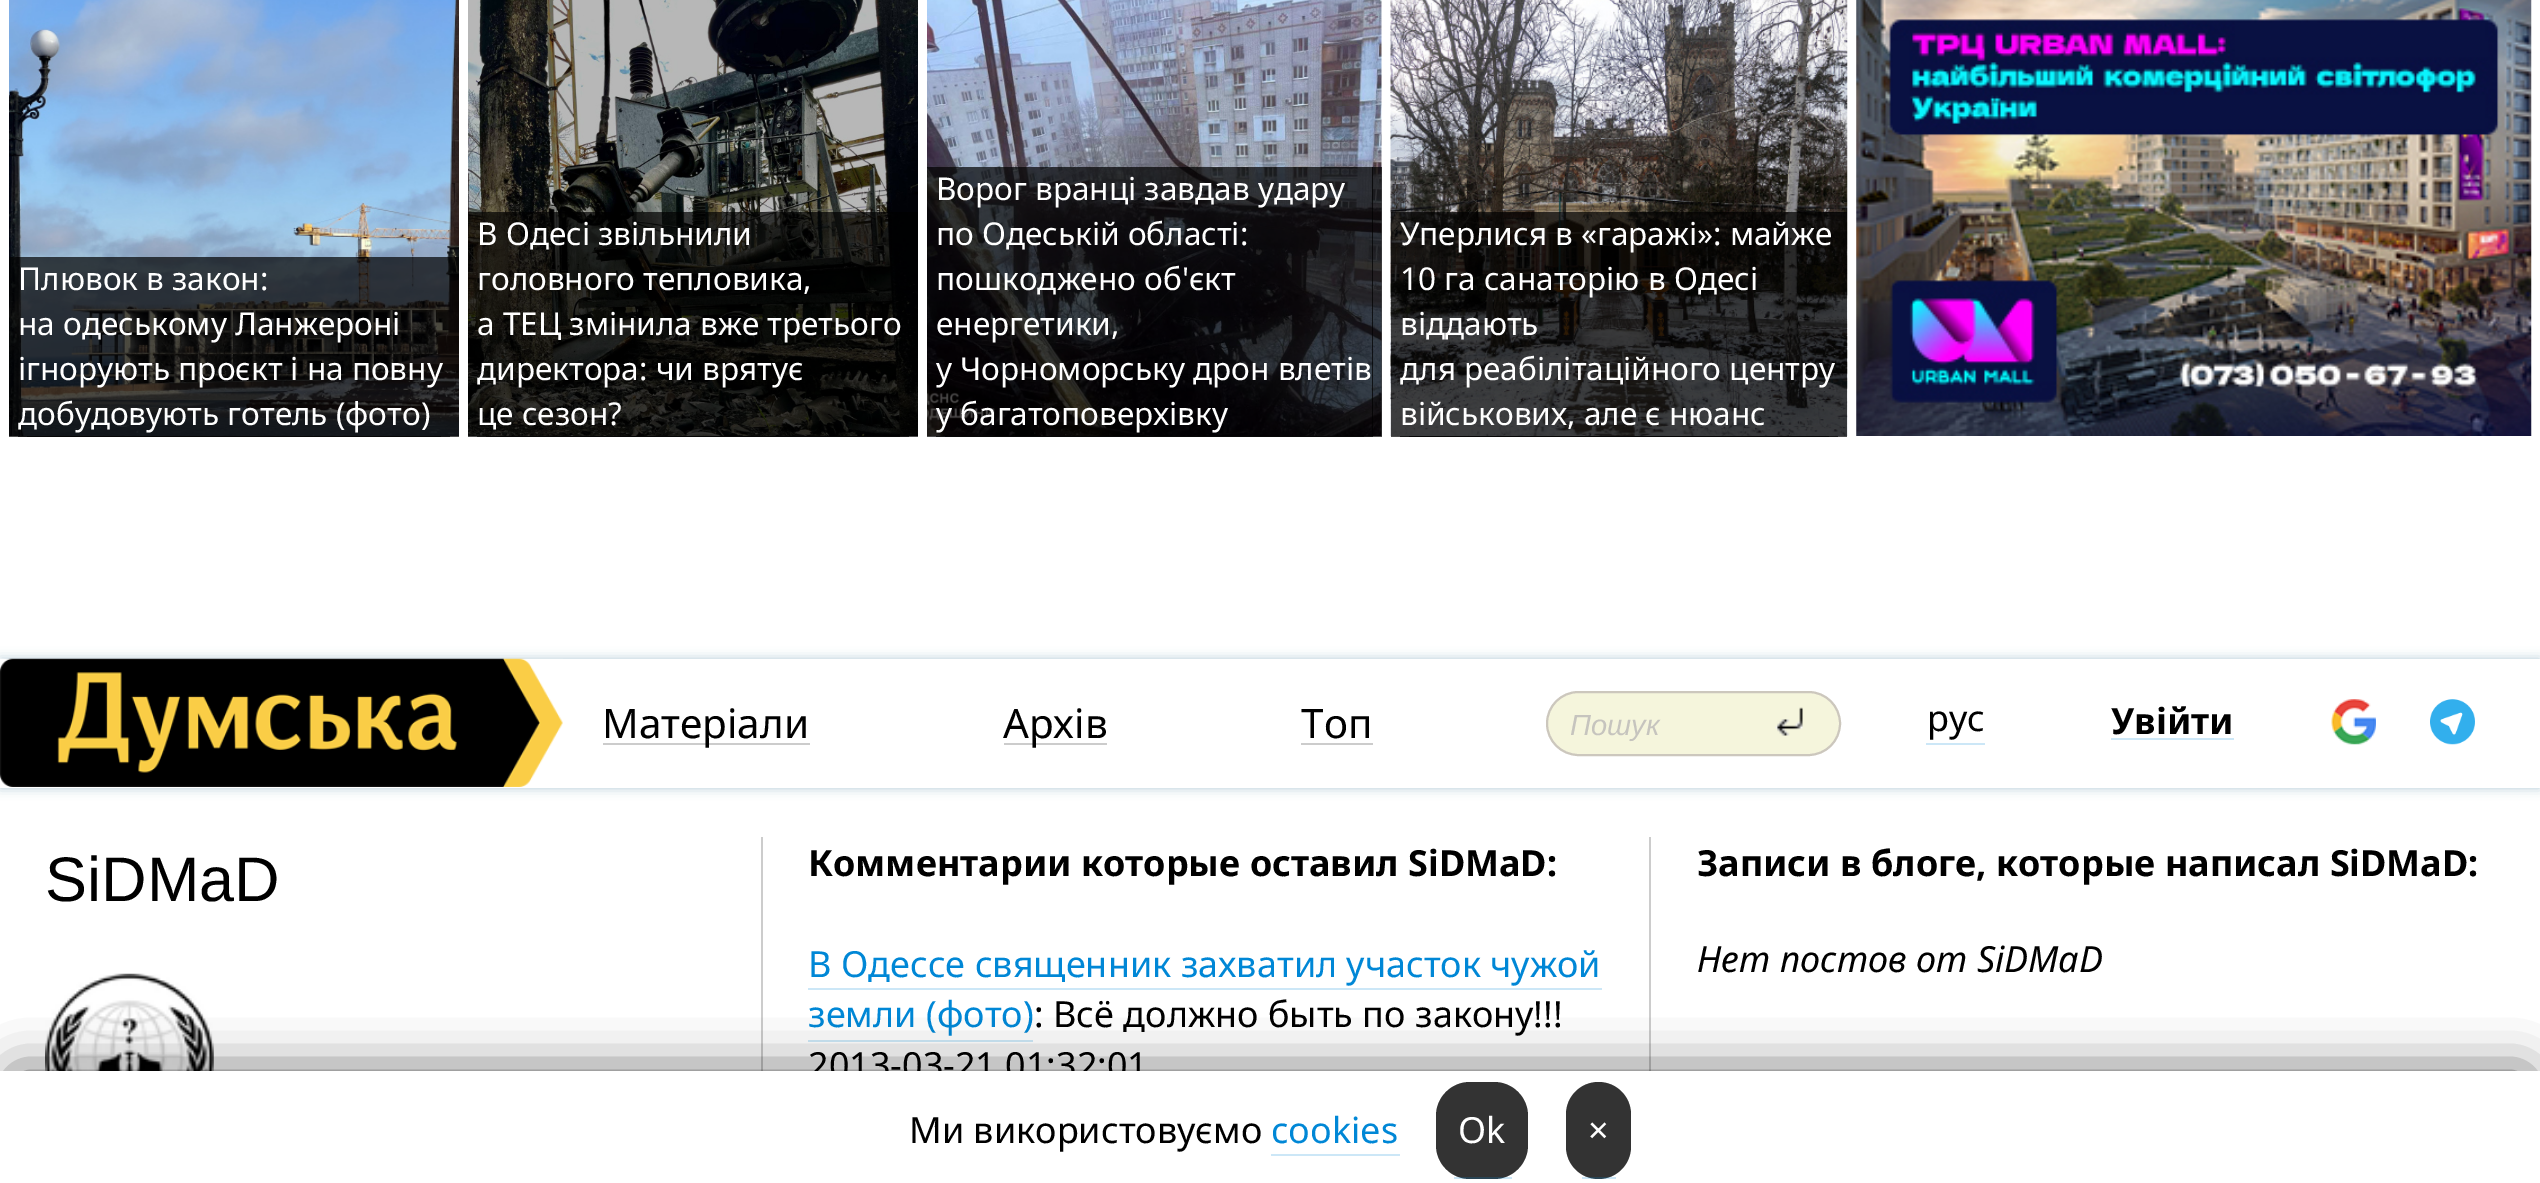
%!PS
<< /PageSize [2540 1183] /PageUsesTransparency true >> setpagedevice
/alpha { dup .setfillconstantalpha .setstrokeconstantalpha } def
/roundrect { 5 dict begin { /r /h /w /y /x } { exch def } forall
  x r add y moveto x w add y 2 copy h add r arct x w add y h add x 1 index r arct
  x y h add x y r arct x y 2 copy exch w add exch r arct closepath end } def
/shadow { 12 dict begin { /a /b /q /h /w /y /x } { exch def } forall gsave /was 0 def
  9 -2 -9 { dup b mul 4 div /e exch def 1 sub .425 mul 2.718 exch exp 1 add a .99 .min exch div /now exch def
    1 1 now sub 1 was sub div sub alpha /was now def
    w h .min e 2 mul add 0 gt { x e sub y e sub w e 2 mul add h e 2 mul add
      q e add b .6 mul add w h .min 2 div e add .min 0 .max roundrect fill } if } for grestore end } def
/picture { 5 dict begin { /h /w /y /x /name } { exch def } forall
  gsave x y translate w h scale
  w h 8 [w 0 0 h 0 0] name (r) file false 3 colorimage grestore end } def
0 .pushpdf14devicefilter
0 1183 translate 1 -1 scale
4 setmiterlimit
1 setgray
0 0 2540 1183 rectfill
(img1.rgb) 9 0 450 436 picture
0.7 alpha
0 setgray
newpath 9 257 moveto 9 437 lineto 441 437 lineto 441 436 lineto 18 436 lineto 18 257 lineto closepath fill
newpath 27 436 moveto 27 437 lineto 459 437 lineto 459 257 lineto 450 257 lineto 450 436 lineto closepath fill
18 257 432 180 rectfill
/NotoSans-Regular [31.5 0 0 -31.5 0 0] selectfont
1 alpha
1 setgray
18 290 moveto (Плювок в закон:) show
18 335 moveto (на одеському Ланжероні) show
18 380 moveto (ігнорують проєкт і на повну) show
18 425 moveto (добудовують готель \(фото\)) show
(img2.rgb) 468 0 450 436 picture
0.7 alpha
0 setgray
newpath 468 212 moveto 468 437 lineto 900 437 lineto 900 436 lineto 477 436 lineto 477 212 lineto closepath fill
newpath 486 436 moveto 486 437 lineto 918 437 lineto 918 212 lineto 909 212 lineto 909 436 lineto closepath fill
477 212 432 225 rectfill
1 alpha
1 setgray
477 245 moveto (В Одесі звільнили) show
477 290 moveto (головного тепловика,) show
477 335 moveto (а ТЕЦ змінила вже третього) show
477 380 moveto (директора: чи врятує) show
477 425 moveto (це сезон?) show
(img3.rgb) 927 0 455 436 picture
0.7 alpha
0 setgray
newpath 927 167 moveto 927 437 lineto 1364 437 lineto 1364 436 lineto 936 436 lineto 936 167 lineto closepath fill
newpath 945 436 moveto 945 437 lineto 1382 437 lineto 1382 167 lineto 1372 167 lineto 1372 436 lineto closepath fill
936 167 437 270 rectfill
1 alpha
1 setgray
936 200 moveto (Ворог вранці завдав удару) show
936 245 moveto (по Одеській області:) show
936 290 moveto (пошкоджено об'єкт) show
936 335 moveto (енергетики,) show
936 380 moveto (у Чорноморську дрон влетів) show
936 425 moveto (у багатоповерхівку) show
(img4.rgb) 1390 0 458 436 picture
0.7 alpha
0 setgray
newpath 1391 212 moveto 1391 437 lineto 1829 437 lineto 1829 436 lineto 1400 436 lineto 1400 212 lineto closepath fill
newpath 1409 436 moveto 1409 437 lineto 1847 437 lineto 1847 212 lineto 1838 212 lineto 1838 436 lineto closepath fill
1400 212 438 225 rectfill
1 alpha
1 setgray
1400 245 moveto (Уперлися в «гаражі»: майже) show
1400 290 moveto (10 га санаторію в Одесі) show
1400 335 moveto (віддають) show
1400 380 moveto (для реабілітаційного центру) show
1400 425 moveto (військових, але є нюанс) show
(img5.rgb) 1856 0 676 436 picture
0 0.31 0.478 setrgbcolor
0 659 2540 129 0 5.5 0.3 shadow
1 setgray
0 659 2540 129 rectfill
(img6.rgb) 0 658 563 129 picture
0.8 setgray
603 743 207 2 rectfill
/NotoSans-Regular [40.5 0 0 -40.5 0 0] selectfont
0 setgray
602 738 moveto (Матеріали) show
0.8 setgray
1004 743 103 2 rectfill
0 setgray
1003 738 moveto (Архів) show
0.8 setgray
1301 743 72 2 rectfill
0 setgray
1301 738 moveto (Топ) show
0.961 0.961 0.863 setrgbcolor
1547 692 293 63 31.5 roundrect gsave fill grestore
0.8 0.78 0.741 setrgbcolor
2 setlinewidth
stroke
/LiberationSans-Italic [29 0 0 -29 0 0] selectfont
0.776 0.769 0.745 setrgbcolor
1570 735 moveto (Пошук) show
(img7.rgb) 1775 707 28 29 picture
/NotoSans-Regular [36 0 0 -36 0 0] selectfont
0 setgray
1927 731 moveto (рус) show
0.8 0.906 0.969 setrgbcolor
1926 743 59 2 rectfill
2111 738 123 2 rectfill
/NotoSans-Bold [36 0 0 -36 0 0] selectfont
0 setgray
2111 734 moveto (Увійти) show
(img8.rgb) 2331 699 45 46 picture
(img9.rgb) 2430 699 45 46 picture
0.8 setgray
761 837 2 234 rectfill
/LiberationSans-Regular [63 0 0 -63 0 0] selectfont
0 setgray
45 901 moveto (SiDMaD) show
(img10.rgb) 45 973 169 98 picture
0.8 setgray
1649 837 2 234 rectfill
/NotoSans-Bold [36 0 0 -36 0 0] selectfont
0 setgray
808 876 moveto (Комментарии которые оставил SiDMaD:) show
/NotoSans-Regular [36 0 0 -36 0 0] selectfont
0 0.529 0.839 setrgbcolor
808 977 moveto (В Одессе священник захватил участок чужой) show
0.8 0.906 0.969 setrgbcolor
808 988 794 2 rectfill
0 0.529 0.839 setrgbcolor
808 1027 moveto (земли \(фото\)) show
0.8 0.906 0.969 setrgbcolor
808 1040 225 2 rectfill
0 setgray
1034 1027 moveto (: Всё должно быть по закону!!!) show
808 1078 moveto (2013-03-21 01:32:01) show
/NotoSans-Bold [36 0 0 -36 0 0] selectfont
1697 876 moveto (Записи в блоге, которые написал SiDMaD:) show
/NotoSans-Italic [36 0 0 -36 0 0] selectfont
1697 972 moveto (Нет постов от SiDMaD) show
16 1076 2509 81 0 26 0.75 shadow
1 setgray
0 1071 2540 112 rectfill
/NotoSans-Regular [36 0 0 -36 0 0] selectfont
0 setgray
909 1143 moveto (Ми використовуємо) show
0 0.529 0.839 setrgbcolor
1271 1143 moveto (cookies) show
0.8 0.906 0.969 setrgbcolor
1271 1154 129 2 rectfill
0.2 setgray
1436 1082 92 97 34 roundrect fill
1 setgray
1458 1143 moveto (Ok) show
0.2 alpha
0 0.529 0.839 setrgbcolor
1454 1177 58 2 rectfill
1 alpha
0.2 setgray
1566 1082 65 97 32.5 roundrect fill
1 setgray
1588 1143 moveto (×) show
0.2 alpha
0 0.529 0.839 setrgbcolor
1582 1177 34 2 rectfill
.poppdf14devicefilter showpage
